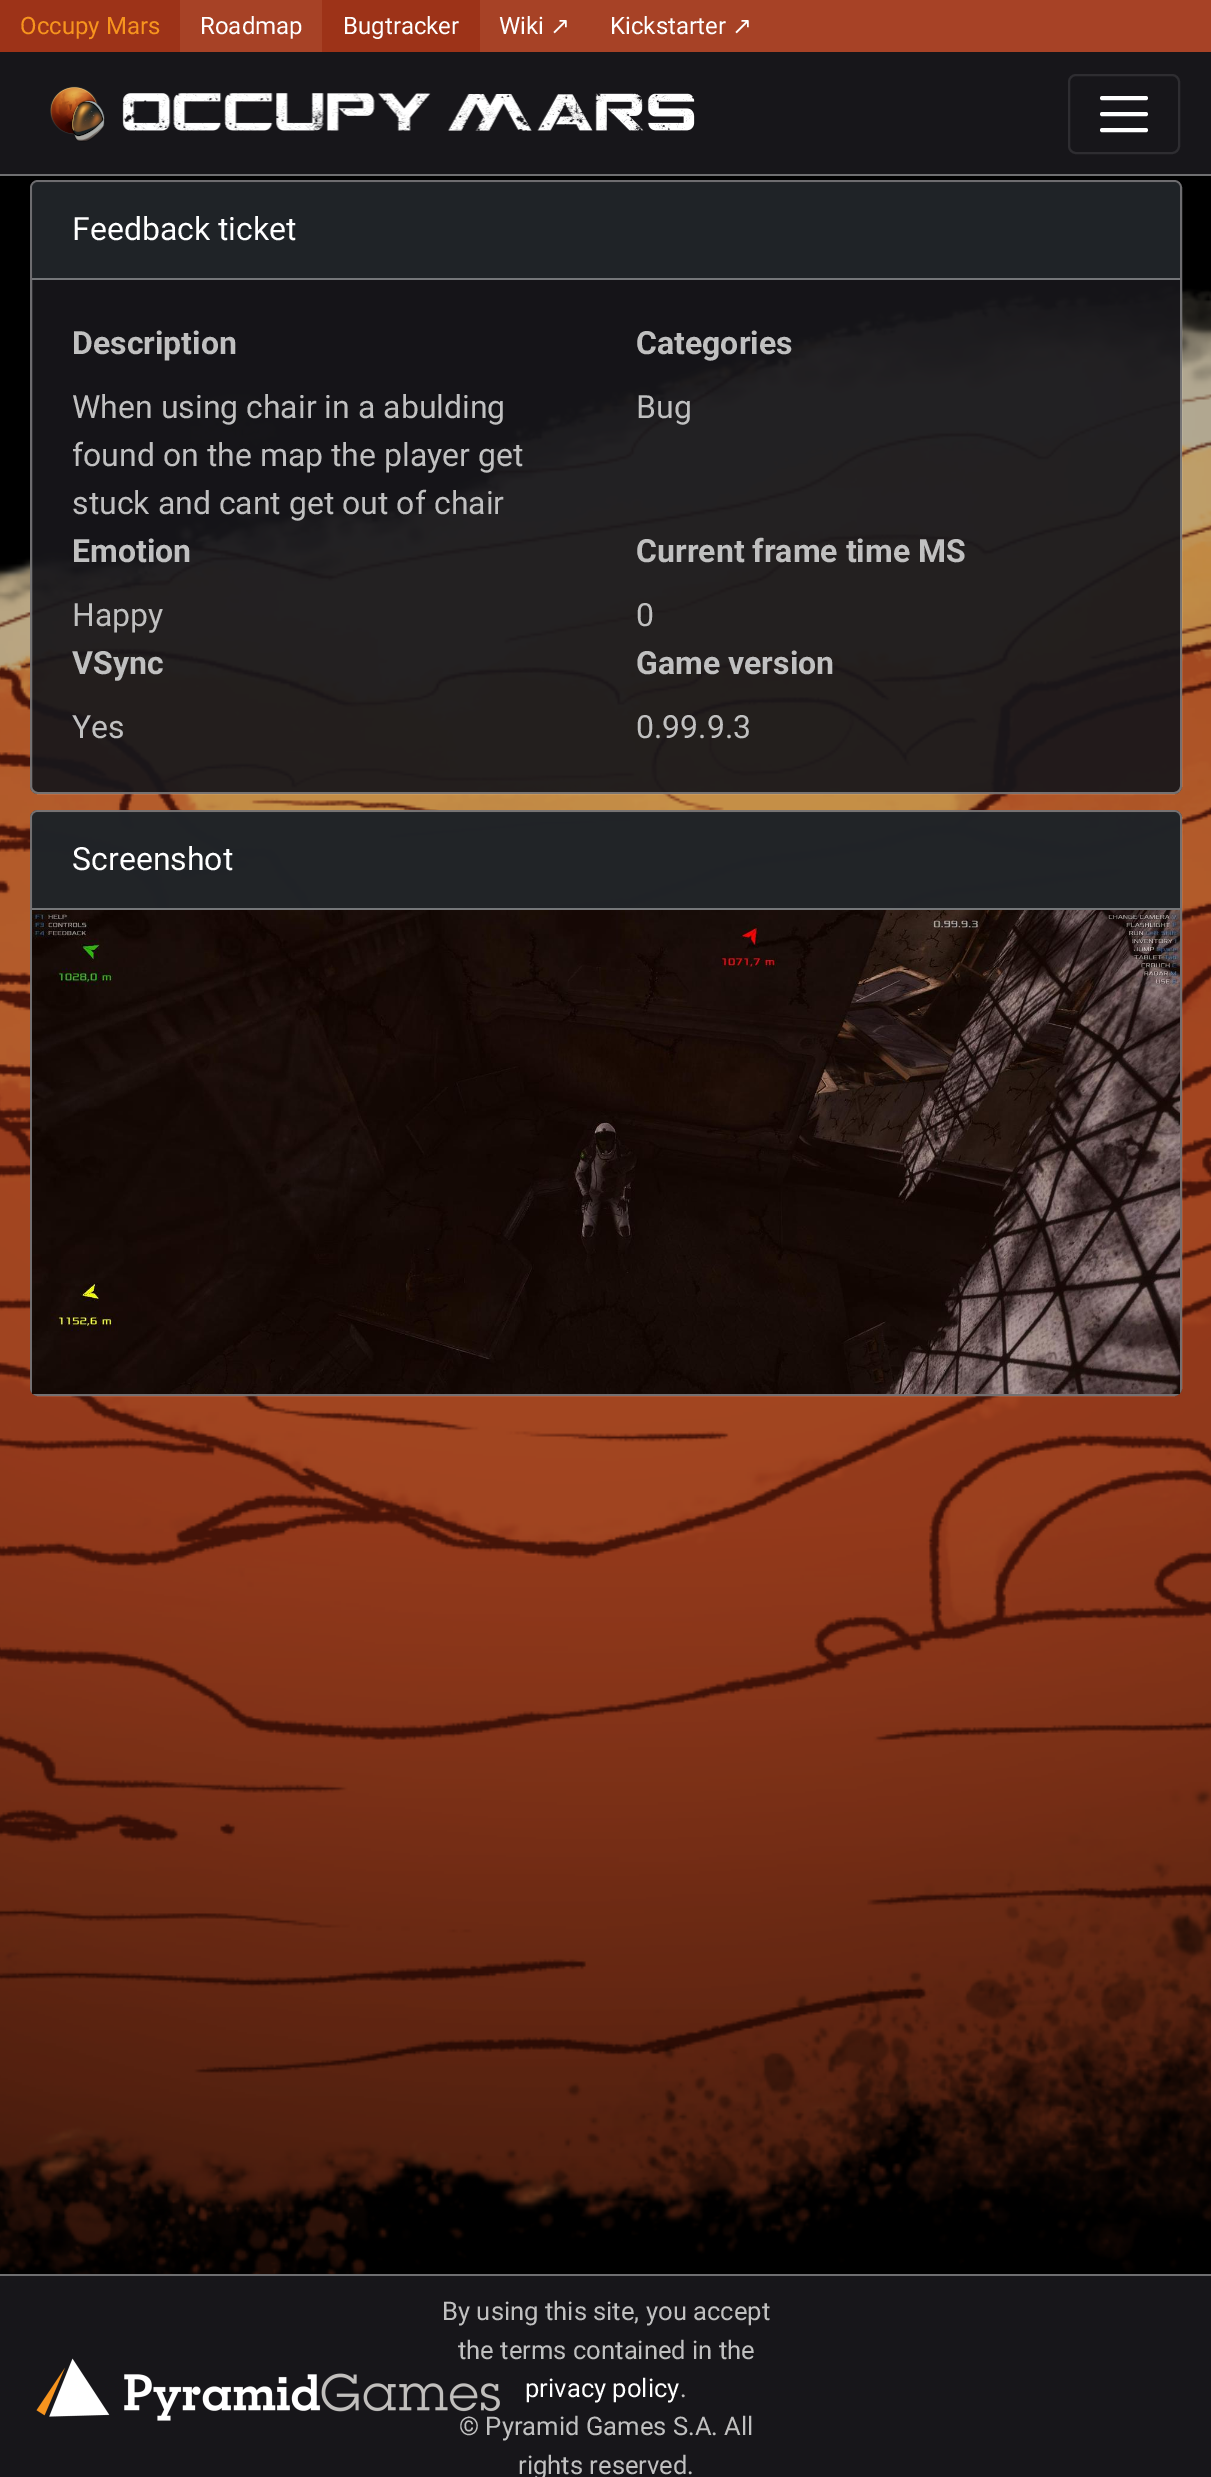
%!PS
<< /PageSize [1211 2477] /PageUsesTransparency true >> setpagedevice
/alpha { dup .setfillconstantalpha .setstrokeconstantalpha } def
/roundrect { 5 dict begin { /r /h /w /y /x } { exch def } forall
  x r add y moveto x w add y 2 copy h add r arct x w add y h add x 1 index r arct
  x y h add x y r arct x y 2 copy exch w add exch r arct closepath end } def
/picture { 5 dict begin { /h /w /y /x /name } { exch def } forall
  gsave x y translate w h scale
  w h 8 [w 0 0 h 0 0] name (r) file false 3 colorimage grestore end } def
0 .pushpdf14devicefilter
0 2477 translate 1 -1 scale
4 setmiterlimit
0 setgray
0 0 1211 2477 rectfill
(img1.rgb) 0 286 1211 1988 picture
0.655 0.259 0.149 setrgbcolor
180 0 1031 52 rectfill
0.616 0.2 0.094 setrgbcolor
0 0 180 52 rectfill
/Roboto-Regular [24 0 0 -24 0 0] selectfont
0.969 0.58 0.118 setrgbcolor
20 34 moveto (Occupy Mars) show
1 setgray
200 34 moveto (Roadmap) show
0.616 0.2 0.094 setrgbcolor
322 0 158 52 rectfill
1 setgray
343 34 moveto (Bugtracker) show
499 34 moveto (Wiki) show
/DejaVuSans-Regular [24 0 0 -24 0 0] selectfont
550 34 moveto (↗) show
/Roboto-Regular [24 0 0 -24 0 0] selectfont
610 34 moveto (Kickstarter) show
/DejaVuSans-Regular [24 0 0 -24 0 0] selectfont
732 34 moveto (↗) show
0.09 0.086 0.102 setrgbcolor
0 52 1211 122 rectfill
0.435 0.435 0.443 setrgbcolor
0 174 1211 2 rectfill
(img2.rgb) 50 86 645 56 picture
0.18 0.176 0.192 setrgbcolor
2 setlinewidth
1069 75 110 78 7 roundrect stroke
1 setgray
4 setlinewidth
1 setlinecap
newpath 1102 98 moveto 1146 98 lineto 1102 114 moveto 1146 114 lineto 1102 130 moveto 1146 130 lineto stroke
0.93 alpha
0.09 0.086 0.102 setrgbcolor
30 180 1152 614 8 roundrect fill
0.38 alpha
1 setgray
2 setlinewidth
0 setlinecap
31 181 1150 612 7 roundrect stroke
0.86 alpha
0.129 0.145 0.161 setrgbcolor
newpath 38 182 moveto 1174 182 lineto 1177.5 182 1180 184.5 1180 188 curveto 1180 280 lineto 32 280 lineto 32 188 lineto 32 184.5 34.5 182 38 182 curveto closepath fill
1 alpha
0.455 0.463 0.475 setrgbcolor
32 278 1148 2 rectfill
/Roboto-Regular [32 0 0 -32 0 0] selectfont
1 setgray
72 240 moveto (Feedback ticket) show
/Roboto-Bold [32 0 0 -32 0 0] selectfont
0.753 setgray
72 354 moveto (Description) show
/Roboto-Regular [32 0 0 -32 0 0] selectfont
72 418 moveto (When using chair in a abulding) show
72 466 moveto (found on the map the player get) show
72 514 moveto (stuck and cant get out of chair) show
/Roboto-Bold [32 0 0 -32 0 0] selectfont
636 354 moveto (Categories) show
/Roboto-Regular [32 0 0 -32 0 0] selectfont
636 418 moveto (Bug) show
/Roboto-Bold [32 0 0 -32 0 0] selectfont
72 562 moveto (Emotion) show
/Roboto-Regular [32 0 0 -32 0 0] selectfont
72 626 moveto (Happy) show
/Roboto-Bold [32 0 0 -32 0 0] selectfont
636 562 moveto (Current frame time MS) show
/Roboto-Regular [32 0 0 -32 0 0] selectfont
636 626 moveto (0) show
/Roboto-Bold [32 0 0 -32 0 0] selectfont
72 674 moveto (VSync) show
/Roboto-Regular [32 0 0 -32 0 0] selectfont
72 738 moveto (Yes) show
/Roboto-Bold [32 0 0 -32 0 0] selectfont
636 674 moveto (Game version) show
/Roboto-Regular [32 0 0 -32 0 0] selectfont
636 738 moveto (0.99.9.3) show
0.93 alpha
0.09 0.086 0.102 setrgbcolor
30 810 1152 586 8 roundrect fill
0.38 alpha
1 setgray
31 811 1150 584 7 roundrect stroke
0.86 alpha
0.129 0.145 0.161 setrgbcolor
newpath 38 812 moveto 1174 812 lineto 1177.5 812 1180 814.5 1180 818 curveto 1180 910 lineto 32 910 lineto 32 818 lineto 32 814.5 34.5 812 38 812 curveto closepath fill
1 alpha
0.459 0.467 0.475 setrgbcolor
32 908 1148 2 rectfill
1 setgray
72 870 moveto (Screenshot) show
(img3.rgb) 32 910 1148 484 picture
0.09 0.086 0.102 setrgbcolor
0 2276 1211 201 rectfill
0.435 0.435 0.443 setrgbcolor
0 2274 1211 2 rectfill
(img4.rgb) 36 2358 464 63 picture
/Roboto-Regular [25.6 0 0 -25.6 0 0] selectfont
0.753 setgray
442 2320 moveto (By using this site, you accept) show
458 2359 moveto (the terms contained in the) show
1 setgray
525 2397 moveto (privacy policy) show
0.753 setgray
680 2397 moveto (.) show
459 2435 moveto (© Pyramid Games S.A. All) show
518 2474 moveto (rights reserved.) show
.poppdf14devicefilter showpage
